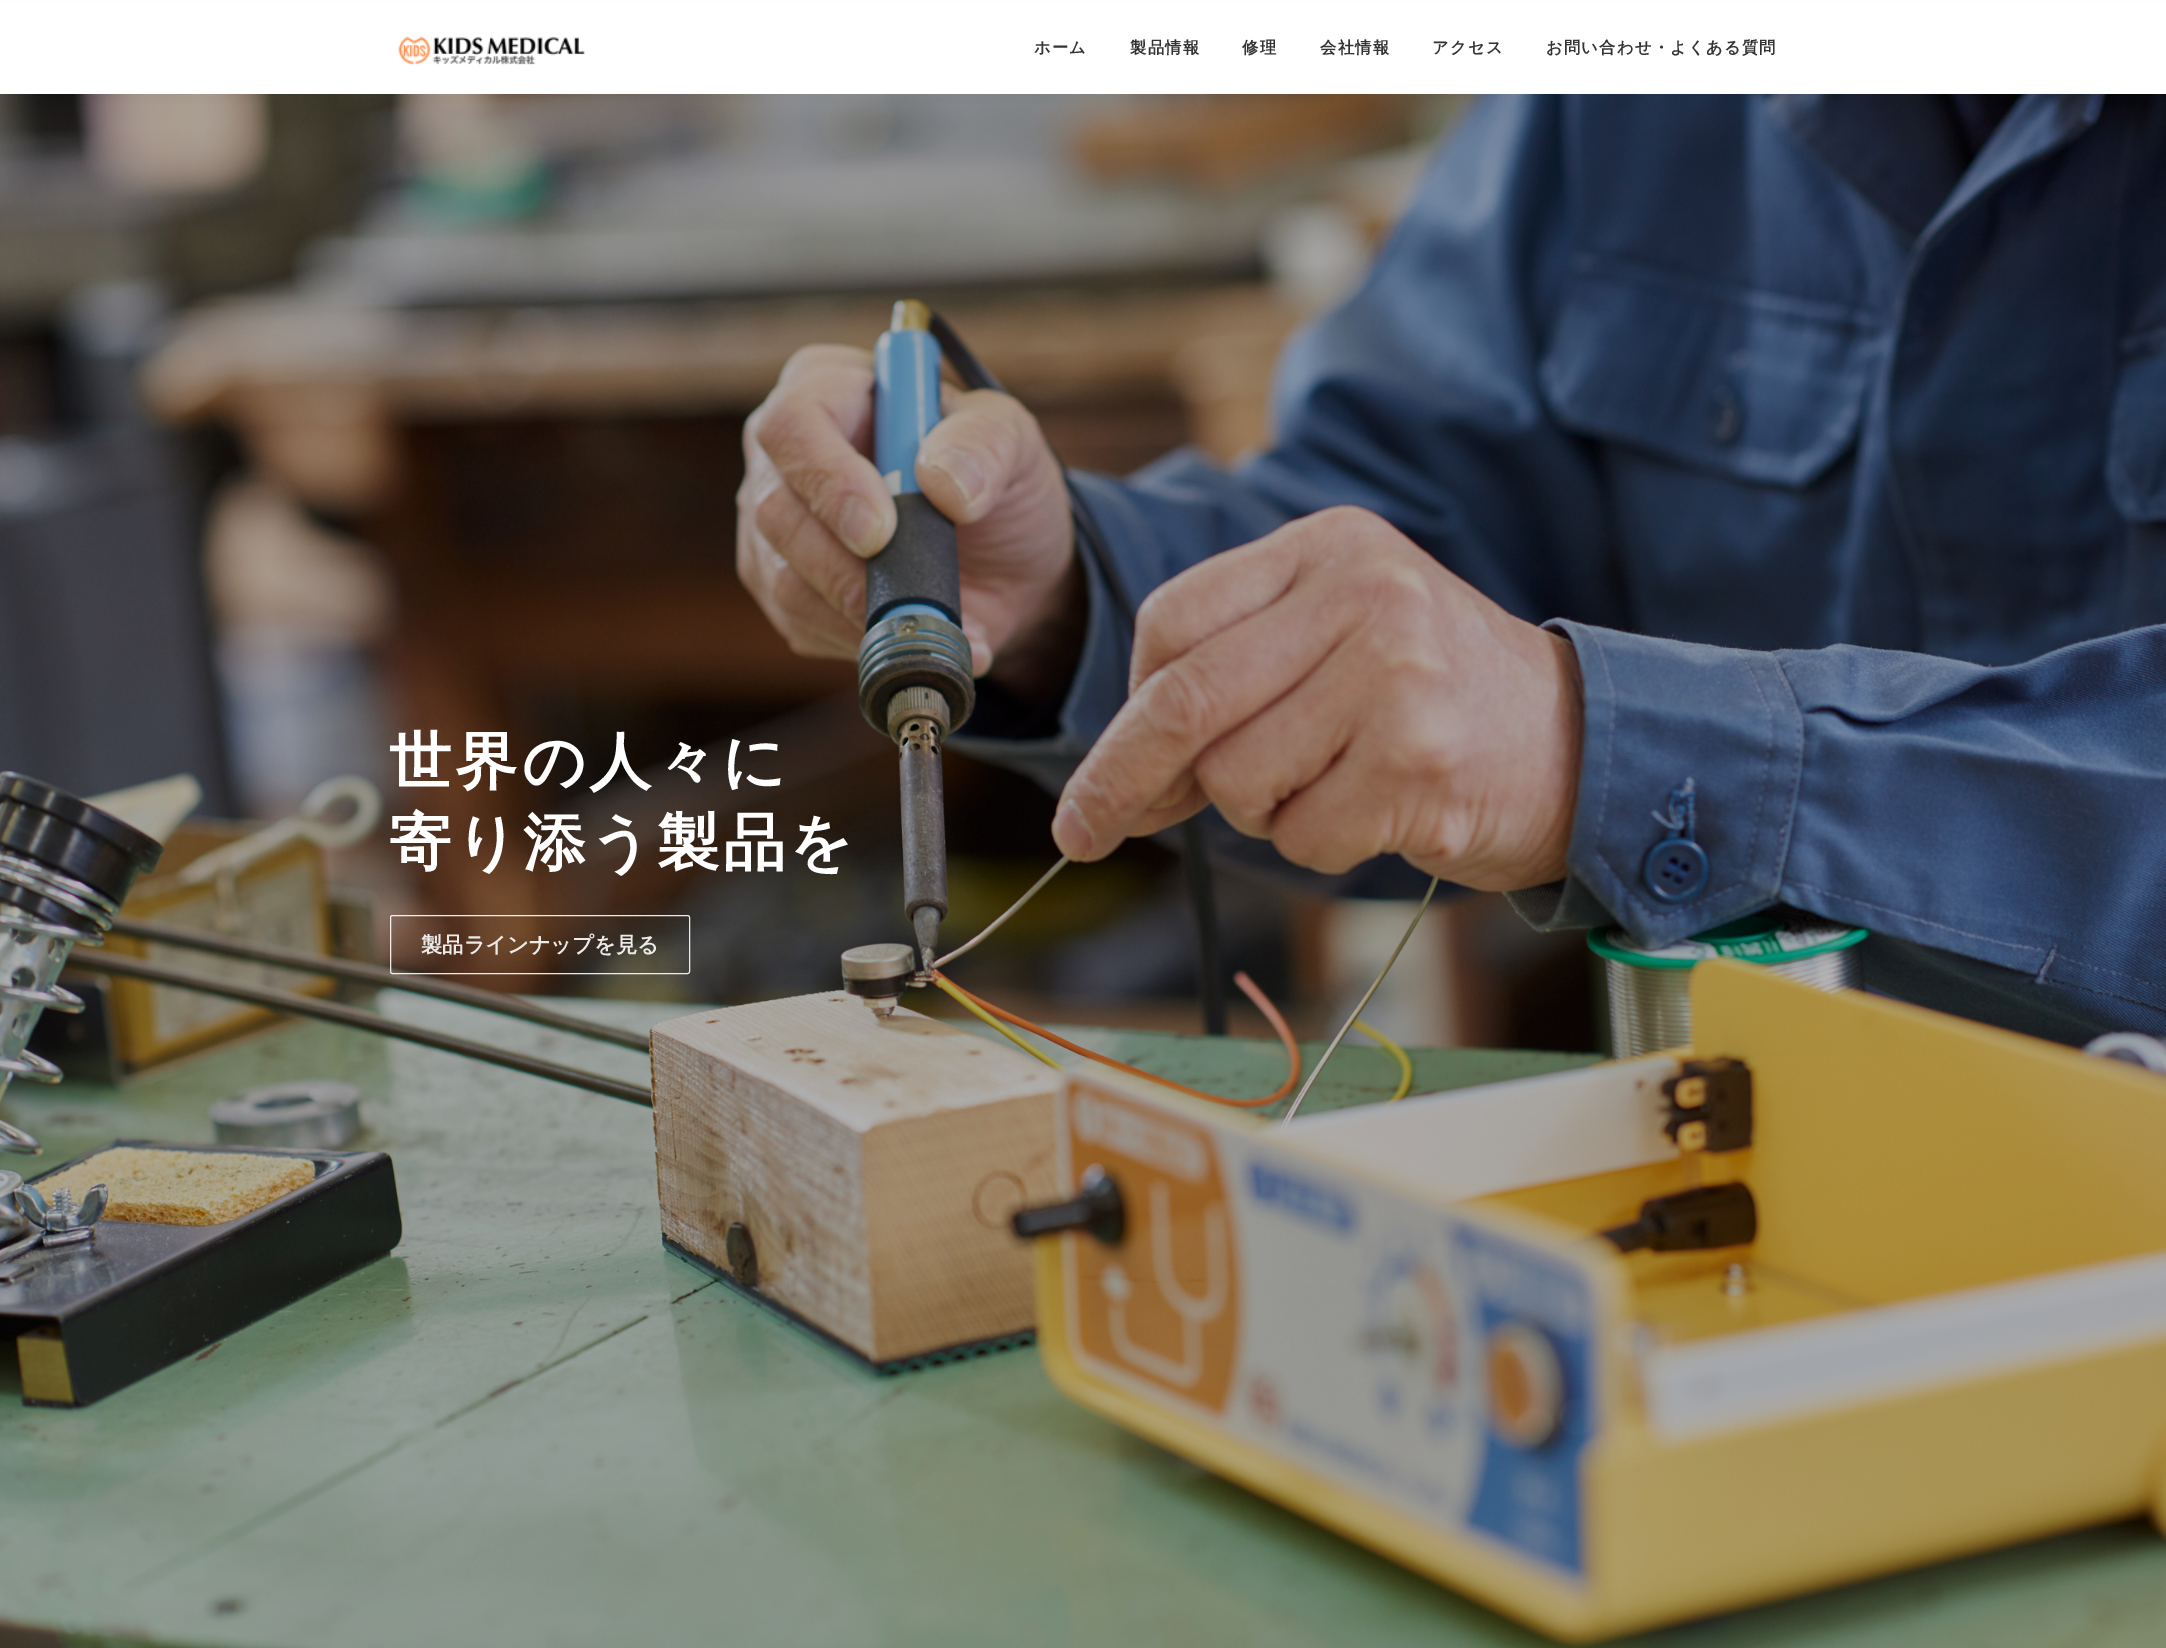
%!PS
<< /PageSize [2166 1648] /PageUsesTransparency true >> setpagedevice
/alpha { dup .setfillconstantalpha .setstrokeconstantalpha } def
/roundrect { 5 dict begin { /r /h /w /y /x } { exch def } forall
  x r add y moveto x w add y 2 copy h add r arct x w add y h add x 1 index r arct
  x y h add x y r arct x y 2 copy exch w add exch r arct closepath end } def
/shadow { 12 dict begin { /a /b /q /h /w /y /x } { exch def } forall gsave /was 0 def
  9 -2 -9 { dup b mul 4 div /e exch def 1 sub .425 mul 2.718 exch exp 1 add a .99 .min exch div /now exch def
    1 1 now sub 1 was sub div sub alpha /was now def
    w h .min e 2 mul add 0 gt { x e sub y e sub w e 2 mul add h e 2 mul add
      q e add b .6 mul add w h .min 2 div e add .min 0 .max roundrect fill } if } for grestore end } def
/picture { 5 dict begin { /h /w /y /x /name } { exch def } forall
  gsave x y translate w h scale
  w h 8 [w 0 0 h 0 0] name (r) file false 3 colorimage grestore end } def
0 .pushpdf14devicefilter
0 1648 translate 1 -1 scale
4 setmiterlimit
1 setgray
0 0 2166 1648 rectfill
(img2.rgb) 0 94 2166 1554 picture
0.196 setgray
0 6 2166 94 0 6 0.06 shadow
1 setgray
0 1 2166 93 rectfill
(img1.rgb) 398 36 187 29 picture
/WenQuanYiZenHei-Bold [16.25 0 0 -16.25 0 0] selectfont
0.2 setgray
1034 53 moveto 1.25 0 (ホーム) ashow
1130 53 moveto 1.25 0 (製品情報) ashow
1242 53 moveto 1.25 0 (修理) ashow
1320 53 moveto 1.25 0 (会社情報) ashow
1432 53 moveto 1.25 0 (アクセス) ashow
1546 53 moveto 1.25 0 (お問い合わせ・よくある質問) ashow
/WenQuanYiZenHei-Bold [62.5 0 0 -62.5 0 0] selectfont
1 setgray
389 783 moveto 3.75 0 (世界の人々に) ashow
389 864 moveto 3.75 0 (寄り添う製品を) ashow
0.9 alpha
390.5 915.5 299 58 2 roundrect stroke
/WenQuanYiZenHei-Bold [21.25 0 0 -21.25 0 0] selectfont
1 alpha
0.929 0.922 0.914 setrgbcolor
421 952 moveto (製品ラインナップを見る) show
.poppdf14devicefilter showpage
